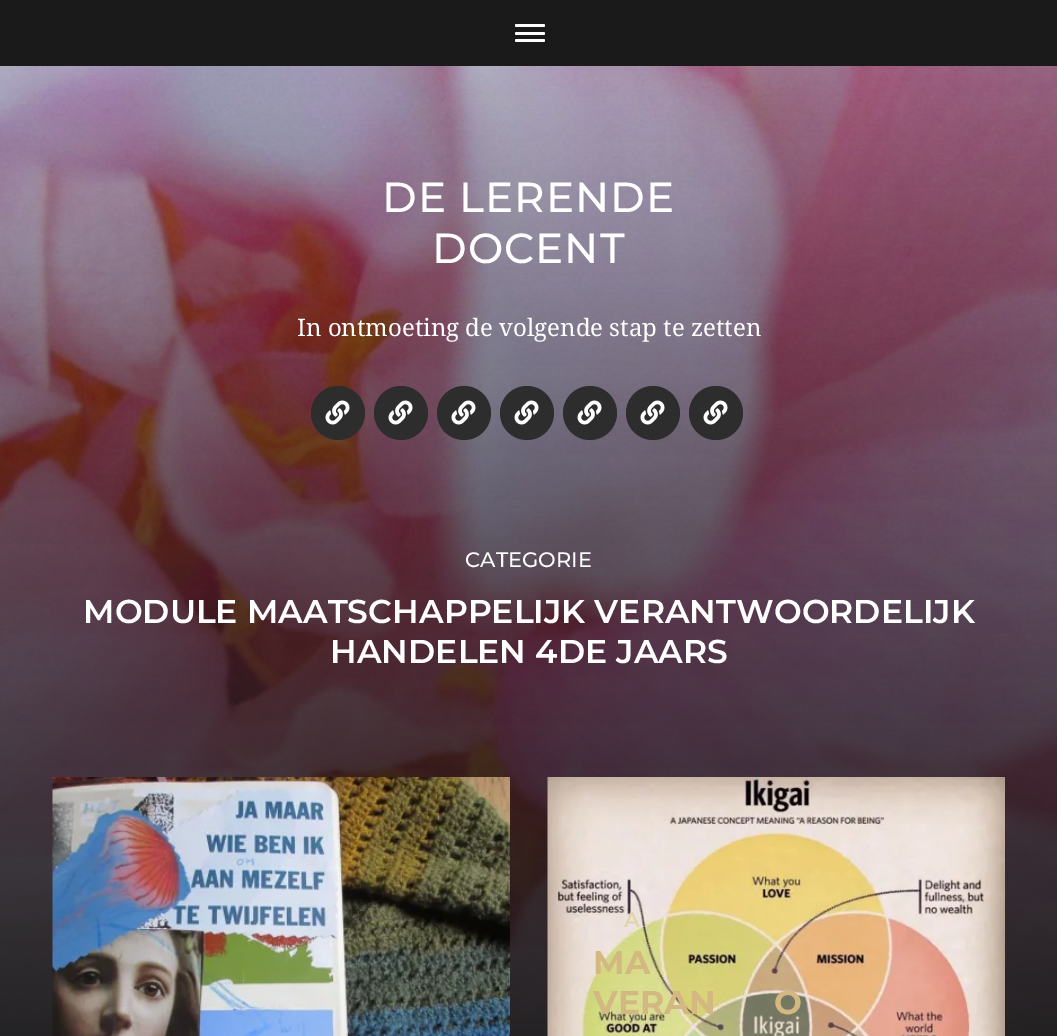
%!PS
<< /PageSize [1057 1036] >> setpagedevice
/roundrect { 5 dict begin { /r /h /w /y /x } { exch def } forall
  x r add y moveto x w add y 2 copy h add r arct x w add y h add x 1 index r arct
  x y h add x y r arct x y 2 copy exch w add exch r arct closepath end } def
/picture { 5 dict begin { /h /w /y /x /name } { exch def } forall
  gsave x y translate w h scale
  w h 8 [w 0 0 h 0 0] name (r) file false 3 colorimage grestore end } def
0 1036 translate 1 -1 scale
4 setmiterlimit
0.114 setgray
0 0 1057 1036 rectfill
0.102 setgray
0 0 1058 66 5 roundrect fill
1 setgray
515 24 30 3 1.5 roundrect fill
515 32 30 3 1.5 roundrect fill
515 39 30 3 1.5 roundrect fill
(img1.rgb) 0 66 1057 970 picture
/Montserrat-Thin [42 0 0 -42 0 0] selectfont
382 212 moveto 1 0 (DE LERENDE) ashow
432 263 moveto 1 0 (DOCENT) ashow
/DroidSerif-Regular [24 0 0 -24 0 0] selectfont
297 336 moveto (In ontmoeting de volgende stap te zetten) show
0.176 setgray
newpath 338 413 27 0 360 arc closepath fill
(img2.rgb) 325 400 25 25 picture
newpath 401 413 27 0 360 arc closepath fill
(img2.rgb) 388 400 25 25 picture
newpath 464 413 27 0 360 arc closepath fill
(img2.rgb) 451 400 25 25 picture
newpath 527 413 27 0 360 arc closepath fill
(img2.rgb) 514 400 25 25 picture
newpath 590 413 27 0 360 arc closepath fill
(img2.rgb) 577 400 25 25 picture
newpath 653 413 27 0 360 arc closepath fill
(img2.rgb) 640 400 25 25 picture
newpath 716 413 27 0 360 arc closepath fill
(img2.rgb) 703 400 25 25 picture
/Montserrat-Thin [21 0 0 -21 0 0] selectfont
1 setgray
465 567 moveto (CATEGORIE) show
/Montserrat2-Thin [33 0 0 -33 0 0] selectfont
83 623 moveto (MODULE MAATSCHAPPELIJK VERANTWOORDELIJK) show
330 663 moveto (HANDELEN 4DE JAARS) show
(img3.rgb) 52 777 458 259 picture
(img4.rgb) 547 777 458 259 picture
/Montserrat2-Thin [21 0 0 -21 0 0] selectfont
0.878 0.835 0.663 setrgbcolor
624 927 moveto (A) show
/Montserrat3-Thin [33 0 0 -33 0 0] selectfont
0.827 0.722 0.51 setrgbcolor
593 974 moveto (MA) show
593 1014 moveto (VERAN) show
774 1014 moveto (O) show
showpage
